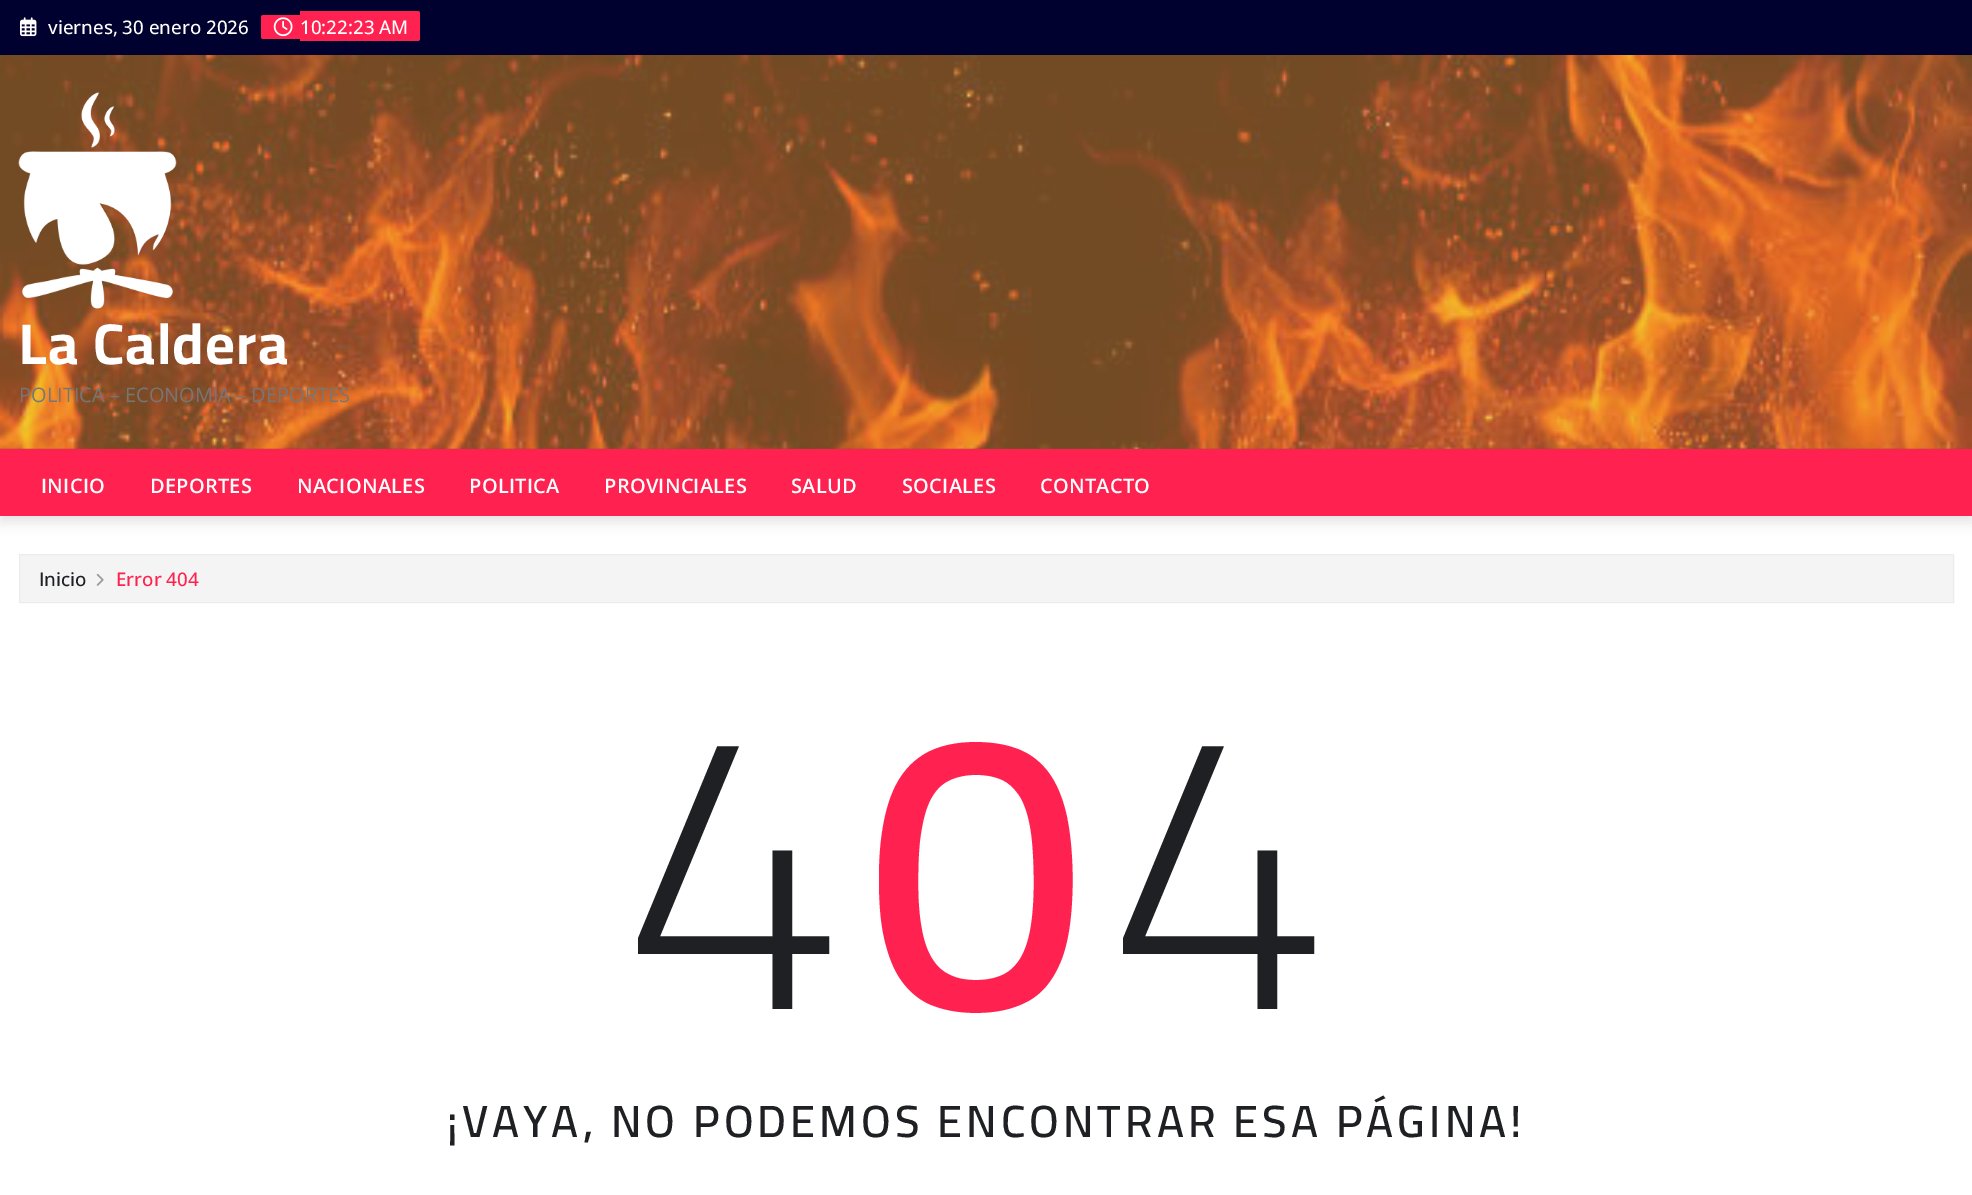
%!PS
<< /PageSize [1972 1195] /PageUsesTransparency true >> setpagedevice
/alpha { dup .setfillconstantalpha .setstrokeconstantalpha } def
/roundrect { 5 dict begin { /r /h /w /y /x } { exch def } forall
  x r add y moveto x w add y 2 copy h add r arct x w add y h add x 1 index r arct
  x y h add x y r arct x y 2 copy exch w add exch r arct closepath end } def
/shadow { 12 dict begin { /a /b /q /h /w /y /x } { exch def } forall gsave /was 0 def
  9 -2 -9 { dup b mul 4 div /e exch def 1 sub .425 mul 2.718 exch exp 1 add a .99 .min exch div /now exch def
    1 1 now sub 1 was sub div sub alpha /was now def
    w h .min e 2 mul add 0 gt { x e sub y e sub w e 2 mul add h e 2 mul add
      q e add b .6 mul add w h .min 2 div e add .min 0 .max roundrect fill } if } for grestore end } def
/picture { 5 dict begin { /h /w /y /x /name } { exch def } forall
  gsave x y translate w h scale
  w h 8 [w 0 0 h 0 0] name (r) file false 3 colorimage grestore end } def
0 .pushpdf14devicefilter
0 1195 translate 1 -1 scale
4 setmiterlimit
1 setgray
0 0 1972 1195 rectfill
0.004 0.004 0.184 setrgbcolor
0 1 1972 53 rectfill
0.004 0.004 0.165 setrgbcolor
0 0 1972 1 rectfill
0 54 1972 1 rectfill
(img1.rgb) 20 17 17 20 picture
/OpenSans-Medium [18.75 0 0 -18.75 0 0] selectfont
1 setgray
48 34 moveto (viernes, 30 enero 2026) show
1 0.129 0.31 setrgbcolor
newpath 263.5 15 moveto 300 15 lineto 300 39 lineto 263.5 39 lineto 262 39 261 38 261 36.5 curveto 261 17.5 lineto 261 16 262 15 263.5 15 curveto closepath fill
(img2.rgb) 273 17 20 20 picture
newpath 300 11 moveto 417.5 11 lineto 419 11 420 12 420 13.5 curveto 420 38.5 lineto 420 40 419 41 417.5 41 curveto 300 41 lineto closepath fill
1 setgray
300 34 moveto (10:22:23 AM) show
(img3.rgb) 0 55 1972 394 picture
(img4.rgb) 18 92 159 217 picture
/Cairo-Bold [57.5 0 0 -57.5 0 0] selectfont
19 364 moveto 1.25 0 (La Caldera) ashow
/OpenSans-Regular [20 0 0 -20 0 0] selectfont
0.463 setgray
19 402 moveto (POLITICA – ECONOMIA – DEPORTES) show
0 setgray
0 455 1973 68 0 6 0.1 shadow
1 0.129 0.31 setrgbcolor
0 449 1972 67 rectfill
/OpenSans-SemiBold [20 0 0 -20 0 0] selectfont
1 setgray
41 493 moveto 0.25 0 (INICIO) ashow
150 493 moveto 0.25 0 (DEPORTES) ashow
297 493 moveto 0.25 0 (NACIONALES) ashow
469 493 moveto 0.25 0 (POLITICA) ashow
604 493 moveto 0.25 0 (PROVINCIALES) ashow
791 493 moveto 0.25 0 (SALUD) ashow
902 493 moveto 0.25 0 (SOCIALES) ashow
1040 493 moveto 0.25 0 (CONTACTO) ashow
0.957 0.957 0.961 setrgbcolor
newpath 19.5 554.5 moveto 1953.5 554.5 lineto 1953.5 602.5 lineto 19.5 602.5 lineto closepath gsave fill grestore
0.922 setgray
stroke
/OpenSans-Medium [18.75 0 0 -18.75 0 0] selectfont
0.122 0.125 0.141 setrgbcolor
39 586 moveto (Inicio) show
(img5.rgb) 96 573 8 13 picture
1 0.129 0.31 setrgbcolor
116 586 moveto (Error 404) show
/Cairo-Light [400 0 0 -400 0 0] selectfont
0.122 0.125 0.141 setrgbcolor
622 1009 moveto 19 0 (4) ashow
/Cairo-SemiBold [400 0 0 -400 0 0] selectfont
1 0.129 0.31 setrgbcolor
865 1009 moveto 19 0 (0) ashow
/Cairo-Light [400 0 0 -400 0 0] selectfont
0.122 0.125 0.141 setrgbcolor
1107 1009 moveto 19 0 (4) ashow
/Cairo-SemiBold [45 0 0 -45 0 0] selectfont
447 1137 moveto 4 0 (¡VAYA, NO PODEMOS ENCONTRAR ESA PÁGINA!) ashow
.poppdf14devicefilter showpage
